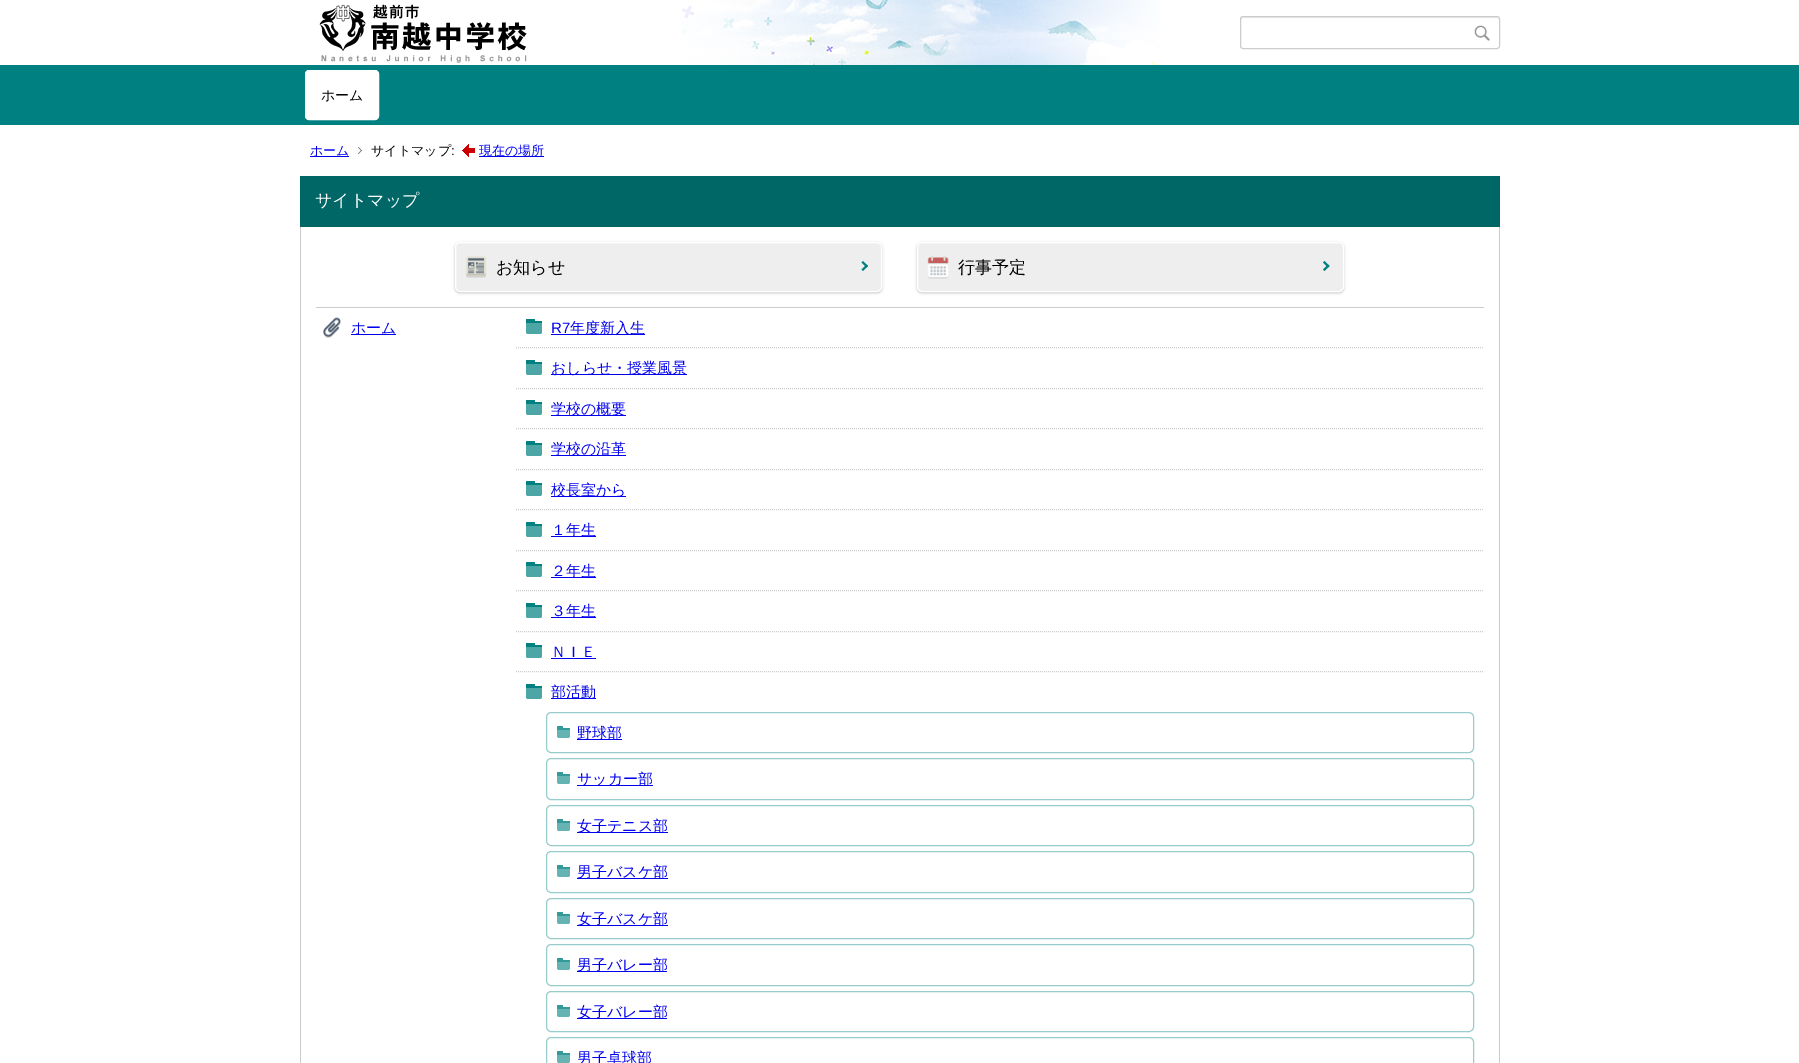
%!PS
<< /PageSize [1799 1063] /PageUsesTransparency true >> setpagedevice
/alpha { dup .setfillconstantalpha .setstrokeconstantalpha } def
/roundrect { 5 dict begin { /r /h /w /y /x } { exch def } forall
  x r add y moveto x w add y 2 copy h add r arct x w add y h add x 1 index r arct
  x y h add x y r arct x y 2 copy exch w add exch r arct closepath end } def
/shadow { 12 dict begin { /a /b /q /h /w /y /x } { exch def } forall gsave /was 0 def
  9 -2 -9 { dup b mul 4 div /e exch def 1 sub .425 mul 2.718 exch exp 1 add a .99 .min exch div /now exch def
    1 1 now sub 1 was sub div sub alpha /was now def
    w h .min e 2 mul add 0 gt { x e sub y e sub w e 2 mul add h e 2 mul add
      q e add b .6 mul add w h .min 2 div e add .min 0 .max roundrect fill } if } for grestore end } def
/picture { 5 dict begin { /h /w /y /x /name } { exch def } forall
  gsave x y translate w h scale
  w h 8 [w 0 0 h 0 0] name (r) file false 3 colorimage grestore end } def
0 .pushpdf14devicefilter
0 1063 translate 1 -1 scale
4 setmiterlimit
1 setgray
0 0 1799 1063 rectfill
(img1.rgb) 681 0 479 65 picture
(img2.rgb) 319 4 208 59 picture
0.925 setgray
newpath 1243 18 moveto 1497 18 lineto 1498 18 1499 19 1499 20 curveto 1498 17 lineto 1243 17 lineto 1241 17 1241 19 1241 20 curveto 1241 19 1242 18 1243 18 curveto closepath fill
0.8 setgray
1240.5 16.5 259 32 2.5 roundrect stroke
(img3.rgb) 1474 25 16 16 picture
0 0.502 0.502 setrgbcolor
0 65 1799 60 rectfill
1 setgray
305.5 70.5 73 49 3.5 roundrect gsave fill grestore
stroke
/WenQuanYiZenHei-Medium [14 0 0 -14 0 0] selectfont
0 setgray
321 100 moveto (ホーム) show
0 0 0.933 setrgbcolor
310 156 39 1 rectfill
/WenQuanYiZenHei-Medium [13 0 0 -13 0 0] selectfont
310 155 moveto (ホーム) show
0.467 setgray
newpath 358.5 147 moveto 362 150.5 lineto 361.5 151 lineto 358 147.5 lineto closepath fill
newpath 361.5 150 moveto 362 150.5 lineto 358.5 154 lineto 358 153.5 lineto closepath fill
0 setgray
371 155 moveto (サイトマップ) show
/LiberationSans-Regular [13 0 0 -13 0 0] selectfont
451 155 moveto (:) show
(img4.rgb) 462 144 13 13 picture
0 0 0.933 setrgbcolor
479 156 65 1 rectfill
/WenQuanYiZenHei-Medium [13 0 0 -13 0 0] selectfont
479 155 moveto (現在の場所) show
0 0.4 0.4 setrgbcolor
300 176 1200 51 rectfill
/WenQuanYiZenHei-Medium [17 0 0 -17 0 0] selectfont
1 setgray
315 206 moveto (サイトマップ) show
0.8 setgray
1499 227 1 836 rectfill
300 227 1 836 rectfill
0.267 setgray
455 243 427 50 5 1 0.24 shadow
455 243 427 50 5 1.5 0.14 shadow
0.933 setgray
455.5 242.5 426 49 4.5 roundrect gsave fill grestore
1 setgray
stroke
(img5.rgb) 465 256 22 22 picture
0 setgray
496 273 moveto (お知らせ) show
0 0.502 0.502 setrgbcolor
newpath 863 261 moveto 868 266 lineto 866.5 267.5 lineto 861.5 262.5 lineto closepath fill
newpath 866.5 264.5 moveto 868 266 lineto 863 271 lineto 861.5 269.5 lineto closepath fill
0.267 setgray
917 243 427 50 5 1 0.24 shadow
917 243 427 50 5 1.5 0.14 shadow
0.933 setgray
917.5 242.5 426 49 4.5 roundrect gsave fill grestore
1 setgray
stroke
(img6.rgb) 927 255 22 24 picture
0 setgray
958 273 moveto (行事予定) show
0 0.502 0.502 setrgbcolor
newpath 1324.5 261 moveto 1329.5 266 lineto 1328 267.5 lineto 1323 262.5 lineto closepath fill
newpath 1328 264.5 moveto 1329.5 266 lineto 1324.5 271 lineto 1323 269.5 lineto closepath fill
0.8 setgray
316 307 1168 1 rectfill
(img7.rgb) 323 317 18 21 picture
0 0 0.933 setrgbcolor
351 334 45 1 rectfill
/WenQuanYiZenHei-Medium [15 0 0 -15 0 0] selectfont
351 333 moveto (ホーム) show
0 0.502 0.502 setrgbcolor
newpath 527 319 moveto 534 319 lineto 534.5 319 535 319.5 535 320 curveto 535 322 lineto 526 322 lineto 526 320 lineto 526 319.5 526.5 319 527 319 curveto closepath fill
0 0 0.933 setrgbcolor
551 334 94 1 rectfill
570 333 moveto (年度新入生) show
0.7 alpha
0 0.502 0.502 setrgbcolor
newpath 526 321 moveto 541 321 lineto 541.5 321 542 321.5 542 322 curveto 542 332 lineto 542 333 541 334 540 334 curveto 528 334 lineto 527 334 526 333 526 332 curveto closepath fill
1 alpha
526 321 16 2 rectfill
/LiberationSans-Regular [15 0 0 -15 0 0] selectfont
0 0 0.933 setrgbcolor
551 333 moveto (R7) show
0.8 setgray
[1 1] 0 setdash
newpath 516 347.5 moveto 1484 347.5 lineto stroke
0 0.502 0.502 setrgbcolor
newpath 527 360 moveto 534 360 lineto 534.5 360 535 360.5 535 361 curveto 535 363 lineto 526 363 lineto 526 361 lineto 526 360.5 526.5 360 527 360 curveto closepath fill
0 0 0.933 setrgbcolor
551 374 136 1 rectfill
/WenQuanYiZenHei-Medium [15 0 0 -15 0 0] selectfont
551 373 moveto (おしらせ・授業風景) show
0.7 alpha
0 0.502 0.502 setrgbcolor
newpath 526 362 moveto 541 362 lineto 541.5 362 542 362.5 542 363 curveto 542 373 lineto 542 374 541 375 540 375 curveto 528 375 lineto 527 375 526 374 526 373 curveto closepath fill
1 alpha
526 362 16 2 rectfill
0.8 setgray
newpath 516 388.5 moveto 1484 388.5 lineto stroke
0 0.502 0.502 setrgbcolor
newpath 527 400 moveto 534 400 lineto 534.5 400 535 400.5 535 401 curveto 535 403 lineto 526 403 lineto 526 401 lineto 526 400.5 526.5 400 527 400 curveto closepath fill
0 0 0.933 setrgbcolor
551 415 75 1 rectfill
551 414 moveto (学校の概要) show
0.7 alpha
0 0.502 0.502 setrgbcolor
newpath 526 402 moveto 541 402 lineto 541.5 402 542 402.5 542 403 curveto 542 413 lineto 542 414 541 415 540 415 curveto 528 415 lineto 527 415 526 414 526 413 curveto closepath fill
1 alpha
526 402 16 2 rectfill
0.8 setgray
newpath 516 428.5 moveto 1484 428.5 lineto stroke
0 0.502 0.502 setrgbcolor
newpath 527 441 moveto 534 441 lineto 534.5 441 535 441.5 535 442 curveto 535 444 lineto 526 444 lineto 526 442 lineto 526 441.5 526.5 441 527 441 curveto closepath fill
0 0 0.933 setrgbcolor
551 455 75 1 rectfill
551 454 moveto (学校の沿革) show
0.7 alpha
0 0.502 0.502 setrgbcolor
newpath 526 443 moveto 541 443 lineto 541.5 443 542 443.5 542 444 curveto 542 454 lineto 542 455 541 456 540 456 curveto 528 456 lineto 527 456 526 455 526 454 curveto closepath fill
1 alpha
526 443 16 2 rectfill
0.8 setgray
newpath 516 469.5 moveto 1484 469.5 lineto stroke
0 0.502 0.502 setrgbcolor
newpath 527 481 moveto 534 481 lineto 534.5 481 535 481.5 535 482 curveto 535 484 lineto 526 484 lineto 526 482 lineto 526 481.5 526.5 481 527 481 curveto closepath fill
0 0 0.933 setrgbcolor
551 496 75 1 rectfill
551 495 moveto (校長室から) show
0.7 alpha
0 0.502 0.502 setrgbcolor
newpath 526 483 moveto 541 483 lineto 541.5 483 542 483.5 542 484 curveto 542 494 lineto 542 495 541 496 540 496 curveto 528 496 lineto 527 496 526 495 526 494 curveto closepath fill
1 alpha
526 483 16 2 rectfill
0.8 setgray
newpath 516 509.5 moveto 1484 509.5 lineto stroke
0 0.502 0.502 setrgbcolor
newpath 527 522 moveto 534 522 lineto 534.5 522 535 522.5 535 523 curveto 535 525 lineto 526 525 lineto 526 523 lineto 526 522.5 526.5 522 527 522 curveto closepath fill
0 0 0.933 setrgbcolor
551 536 45 1 rectfill
551 535 moveto (１年生) show
0.7 alpha
0 0.502 0.502 setrgbcolor
newpath 526 524 moveto 541 524 lineto 541.5 524 542 524.5 542 525 curveto 542 535 lineto 542 536 541 537 540 537 curveto 528 537 lineto 527 537 526 536 526 535 curveto closepath fill
1 alpha
526 524 16 2 rectfill
0.8 setgray
newpath 516 550.5 moveto 1484 550.5 lineto stroke
0 0.502 0.502 setrgbcolor
newpath 527 562 moveto 534 562 lineto 534.5 562 535 562.5 535 563 curveto 535 565 lineto 526 565 lineto 526 563 lineto 526 562.5 526.5 562 527 562 curveto closepath fill
0 0 0.933 setrgbcolor
551 577 45 1 rectfill
551 576 moveto (２年生) show
0.7 alpha
0 0.502 0.502 setrgbcolor
newpath 526 564 moveto 541 564 lineto 541.5 564 542 564.5 542 565 curveto 542 575 lineto 542 576 541 577 540 577 curveto 528 577 lineto 527 577 526 576 526 575 curveto closepath fill
1 alpha
526 564 16 2 rectfill
0.8 setgray
newpath 516 590.5 moveto 1484 590.5 lineto stroke
0 0.502 0.502 setrgbcolor
newpath 527 603 moveto 534 603 lineto 534.5 603 535 603.5 535 604 curveto 535 606 lineto 526 606 lineto 526 604 lineto 526 603.5 526.5 603 527 603 curveto closepath fill
0 0 0.933 setrgbcolor
551 617 45 1 rectfill
551 616 moveto (３年生) show
0.7 alpha
0 0.502 0.502 setrgbcolor
newpath 526 605 moveto 541 605 lineto 541.5 605 542 605.5 542 606 curveto 542 616 lineto 542 617 541 618 540 618 curveto 528 618 lineto 527 618 526 617 526 616 curveto closepath fill
1 alpha
526 605 16 2 rectfill
0.8 setgray
newpath 516 631.5 moveto 1484 631.5 lineto stroke
0 0.502 0.502 setrgbcolor
newpath 527 643 moveto 534 643 lineto 534.5 643 535 643.5 535 644 curveto 535 646 lineto 526 646 lineto 526 644 lineto 526 643.5 526.5 643 527 643 curveto closepath fill
0.7 alpha
newpath 526 645 moveto 541 645 lineto 541.5 645 542 645.5 542 646 curveto 542 656 lineto 542 657 541 658 540 658 curveto 528 658 lineto 527 658 526 657 526 656 curveto closepath fill
1 alpha
526 645 16 2 rectfill
0 0 0.933 setrgbcolor
551 657 moveto (ＮＩＥ) show
551 658 45 1 rectfill
0.8 setgray
newpath 516 671.5 moveto 1484 671.5 lineto stroke
0 0.502 0.502 setrgbcolor
newpath 527 684 moveto 534 684 lineto 534.5 684 535 684.5 535 685 curveto 535 687 lineto 526 687 lineto 526 685 lineto 526 684.5 526.5 684 527 684 curveto closepath fill
0 0 0.933 setrgbcolor
551 698 45 1 rectfill
551 697 moveto (部活動) show
0.7 alpha
0 0.502 0.502 setrgbcolor
newpath 526 686 moveto 541 686 lineto 541.5 686 542 686.5 542 687 curveto 542 697 lineto 542 698 541 699 540 699 curveto 528 699 lineto 527 699 526 698 526 697 curveto closepath fill
1 alpha
526 686 16 2 rectfill
0.6 0.8 0.8 setrgbcolor
[] 0 setdash
546.5 712.5 927 40 4.5 roundrect stroke
0.2 0.6 0.6 setrgbcolor
newpath 558 726 moveto 562 726 lineto 562.5 726 563 726.5 563 727 curveto 563 729 lineto 557 729 lineto 557 727 lineto 557 726.5 557.5 726 558 726 curveto closepath fill
0 0 0.933 setrgbcolor
577 739 45 1 rectfill
577 738 moveto (野球部) show
0.4 0.702 0.702 setrgbcolor
newpath 557 728 moveto 569 728 lineto 569.5 728 570 728.5 570 729 curveto 570 736 lineto 570 737 569 738 568 738 curveto 559 738 lineto 558 738 557 737 557 736 curveto closepath fill
0.2 0.6 0.6 setrgbcolor
557 728 13 2 rectfill
0.6 0.8 0.8 setrgbcolor
546.5 758.5 927 41 4.5 roundrect stroke
0.2 0.6 0.6 setrgbcolor
newpath 558 772 moveto 562 772 lineto 562.5 772 563 772.5 563 773 curveto 563 775 lineto 557 775 lineto 557 773 lineto 557 772.5 557.5 772 558 772 curveto closepath fill
0 0 0.933 setrgbcolor
577 785 76 1 rectfill
577 784 moveto (サッカー部) show
0.4 0.702 0.702 setrgbcolor
newpath 557 774 moveto 569 774 lineto 569.5 774 570 774.5 570 775 curveto 570 782 lineto 570 783 569 784 568 784 curveto 559 784 lineto 558 784 557 783 557 782 curveto closepath fill
0.2 0.6 0.6 setrgbcolor
557 774 13 2 rectfill
0.6 0.8 0.8 setrgbcolor
546.5 805.5 927 40 4.5 roundrect stroke
0.2 0.6 0.6 setrgbcolor
newpath 558 819 moveto 562 819 lineto 562.5 819 563 819.5 563 820 curveto 563 822 lineto 557 822 lineto 557 820 lineto 557 819.5 557.5 819 558 819 curveto closepath fill
0 0 0.933 setrgbcolor
577 832 91 1 rectfill
577 831 moveto (女子テニス部) show
0.4 0.702 0.702 setrgbcolor
newpath 557 821 moveto 569 821 lineto 569.5 821 570 821.5 570 822 curveto 570 829 lineto 570 830 569 831 568 831 curveto 559 831 lineto 558 831 557 830 557 829 curveto closepath fill
0.2 0.6 0.6 setrgbcolor
557 821 13 2 rectfill
0.6 0.8 0.8 setrgbcolor
546.5 851.5 927 41 4.5 roundrect stroke
0.2 0.6 0.6 setrgbcolor
newpath 558 865 moveto 562 865 lineto 562.5 865 563 865.5 563 866 curveto 563 868 lineto 557 868 lineto 557 866 lineto 557 865.5 557.5 865 558 865 curveto closepath fill
0 0 0.933 setrgbcolor
577 878 91 1 rectfill
577 877 moveto (男子バスケ部) show
0.4 0.702 0.702 setrgbcolor
newpath 557 867 moveto 569 867 lineto 569.5 867 570 867.5 570 868 curveto 570 875 lineto 570 876 569 877 568 877 curveto 559 877 lineto 558 877 557 876 557 875 curveto closepath fill
0.2 0.6 0.6 setrgbcolor
557 867 13 2 rectfill
0.6 0.8 0.8 setrgbcolor
546.5 898.5 927 40 4.5 roundrect stroke
0.2 0.6 0.6 setrgbcolor
newpath 558 912 moveto 562 912 lineto 562.5 912 563 912.5 563 913 curveto 563 915 lineto 557 915 lineto 557 913 lineto 557 912.5 557.5 912 558 912 curveto closepath fill
0 0 0.933 setrgbcolor
577 925 91 1 rectfill
577 924 moveto (女子バスケ部) show
0.4 0.702 0.702 setrgbcolor
newpath 557 914 moveto 569 914 lineto 569.5 914 570 914.5 570 915 curveto 570 922 lineto 570 923 569 924 568 924 curveto 559 924 lineto 558 924 557 923 557 922 curveto closepath fill
0.2 0.6 0.6 setrgbcolor
557 914 13 2 rectfill
0.6 0.8 0.8 setrgbcolor
546.5 944.5 927 41 4.5 roundrect stroke
0.2 0.6 0.6 setrgbcolor
newpath 558 958 moveto 562 958 lineto 562.5 958 563 958.5 563 959 curveto 563 961 lineto 557 961 lineto 557 959 lineto 557 958.5 557.5 958 558 958 curveto closepath fill
0 0 0.933 setrgbcolor
577 971 90 1 rectfill
577 970 moveto (男子バレー部) show
0.4 0.702 0.702 setrgbcolor
newpath 557 960 moveto 569 960 lineto 569.5 960 570 960.5 570 961 curveto 570 968 lineto 570 969 569 970 568 970 curveto 559 970 lineto 558 970 557 969 557 968 curveto closepath fill
0.2 0.6 0.6 setrgbcolor
557 960 13 2 rectfill
0.6 0.8 0.8 setrgbcolor
546.5 991.5 927 40 4.5 roundrect stroke
0.2 0.6 0.6 setrgbcolor
newpath 558 1005 moveto 562 1005 lineto 562.5 1005 563 1005.5 563 1006 curveto 563 1008 lineto 557 1008 lineto 557 1006 lineto 557 1005.5 557.5 1005 558 1005 curveto closepath fill
0 0 0.933 setrgbcolor
577 1018 90 1 rectfill
577 1017 moveto (女子バレー部) show
0.4 0.702 0.702 setrgbcolor
newpath 557 1007 moveto 569 1007 lineto 569.5 1007 570 1007.5 570 1008 curveto 570 1015 lineto 570 1016 569 1017 568 1017 curveto 559 1017 lineto 558 1017 557 1016 557 1015 curveto closepath fill
0.2 0.6 0.6 setrgbcolor
557 1007 13 2 rectfill
0.6 0.8 0.8 setrgbcolor
546.5 1037.5 927 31 4.5 roundrect stroke
0.2 0.6 0.6 setrgbcolor
newpath 558 1051 moveto 562 1051 lineto 562.5 1051 563 1051.5 563 1052 curveto 563 1054 lineto 557 1054 lineto 557 1052 lineto 557 1051.5 557.5 1051 558 1051 curveto closepath fill
0 0 0.933 setrgbcolor
577 1063 moveto (男子卓球部) show
0.4 0.702 0.702 setrgbcolor
newpath 557 1053 moveto 569 1053 lineto 569.5 1053 570 1053.5 570 1054 curveto 570 1061 lineto 570 1062 569 1063 568 1063 curveto 559 1063 lineto 558 1063 557 1062 557 1061 curveto closepath fill
0.2 0.6 0.6 setrgbcolor
557 1053 13 2 rectfill
.poppdf14devicefilter showpage
